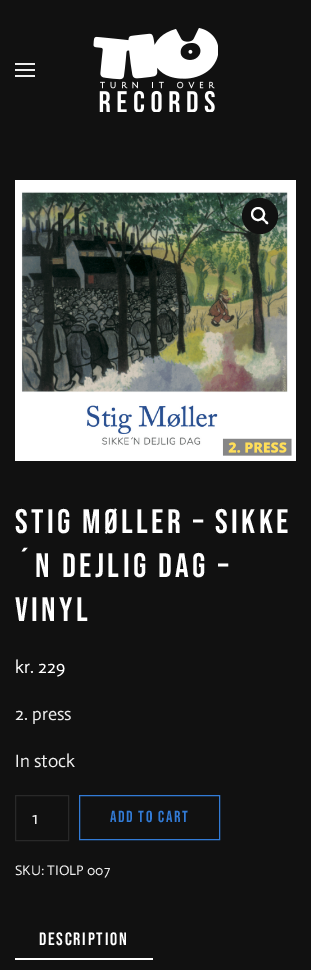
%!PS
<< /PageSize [311 970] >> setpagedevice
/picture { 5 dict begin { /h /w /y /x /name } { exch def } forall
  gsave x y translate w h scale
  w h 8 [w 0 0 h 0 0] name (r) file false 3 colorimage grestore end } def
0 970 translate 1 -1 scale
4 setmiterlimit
0.067 setgray
0 0 311 970 rectfill
0.933 setgray
15 63 20 2 rectfill
15 69 20 2 rectfill
15 75 20 2 rectfill
(img1.rgb) 93 28 125 84 picture
(img2.rgb) 15 180 281 281 picture
0.067 setgray
newpath 260 216 18 0 360 arc closepath fill
1 setgray
2 setlinewidth
newpath 258 214 6 0 360 arc closepath stroke
newpath 262 218 moveto 263.5 217 265 219.5 265.5 220.5 curveto 266.5 221 269 222.5 268 224 curveto 266.5 225 265 222.5 264.5 221.5 curveto 263.5 221 261 219.5 262 218 curveto closepath fill
/BebasNeue-Regular [34 0 0 -34 0 0] selectfont
15 533 moveto 3.4 0 (STIG MØLLER – SIKKE) ashow
15 577 moveto 3.4 0 (´N DEJLIG DAG –) ashow
15 621 moveto 3.4 0 (VINYL) ashow
/Actor-Regular [18 0 0 -18 0 0] selectfont
15 673 moveto (kr. 229) show
0.933 setgray
15 720 moveto (2. press) show
15 767 moveto (In stock) show
0.161 setgray
1 setlinewidth
15.5 795.5 53 45 rectstroke
0.933 setgray
32 824 moveto (1) show
0.196 0.482 0.839 setrgbcolor
79.5 795.5 140 44 rectstroke
/BebasNeue-Regular [16 0 0 -16 0 0] selectfont
110 822 moveto 1.6 0 (ADD TO CART) ashow
/Actor-Regular [14 0 0 -14 0 0] selectfont
0.933 setgray
15 875 moveto (SKU: TIOLP 007) show
1 setgray
15 958 138 2 rectfill
/BebasNeue-Regular [18 0 0 -18 0 0] selectfont
39 945 moveto 1.75 0 (Description) ashow
showpage
